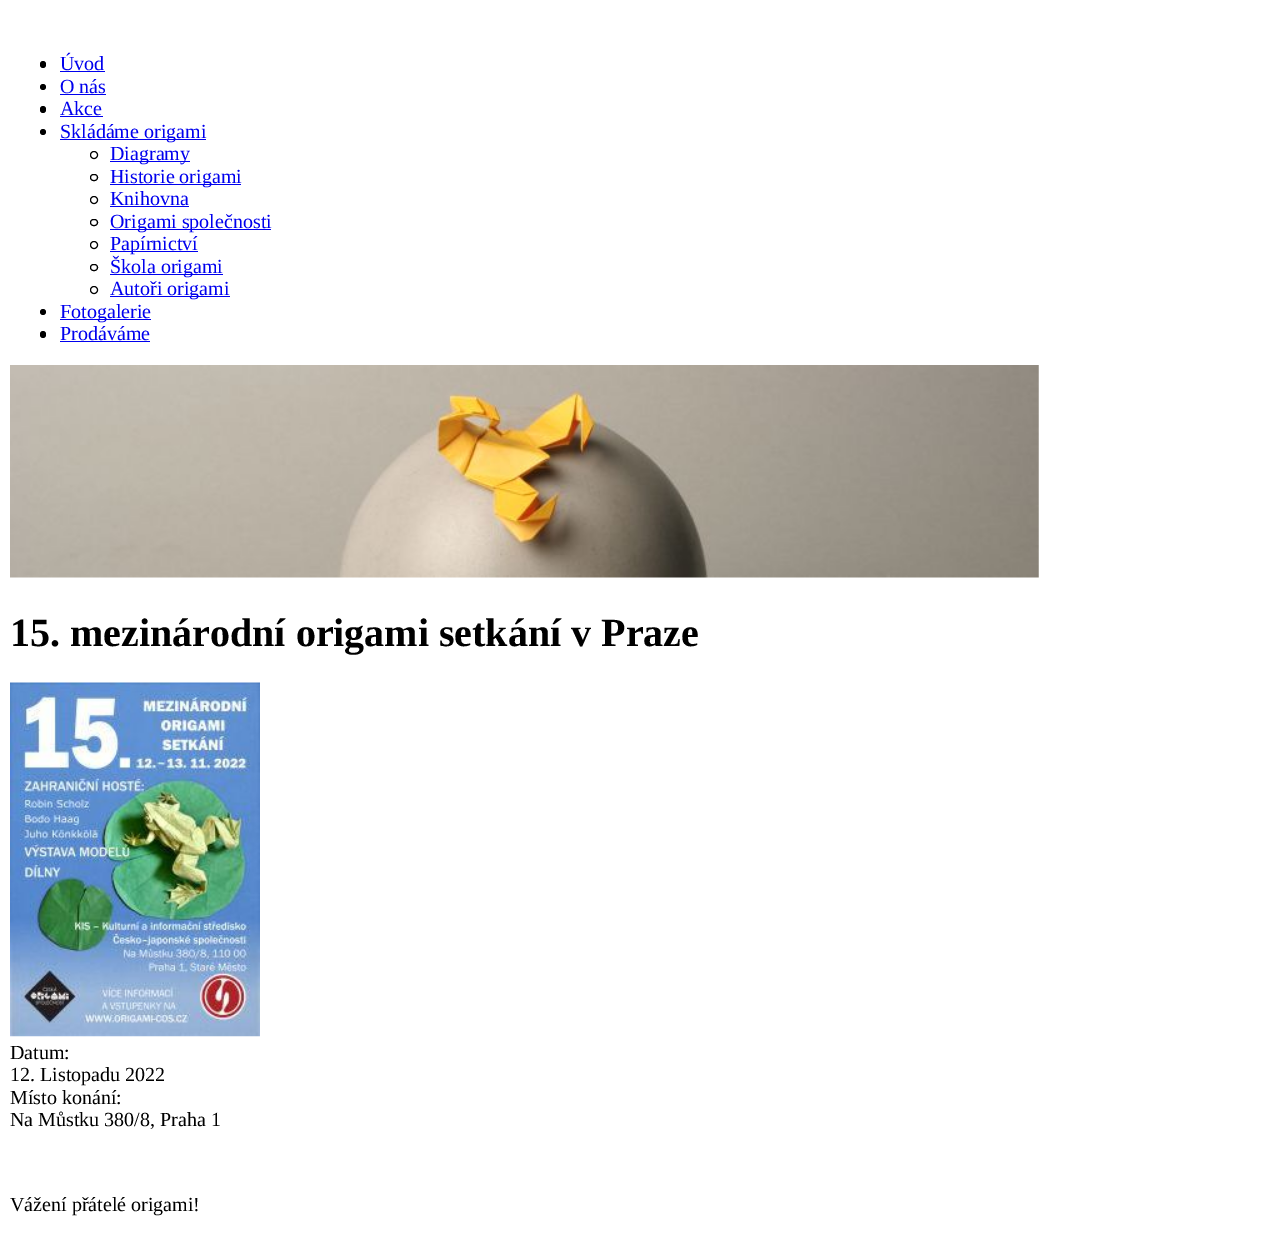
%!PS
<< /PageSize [1283 1249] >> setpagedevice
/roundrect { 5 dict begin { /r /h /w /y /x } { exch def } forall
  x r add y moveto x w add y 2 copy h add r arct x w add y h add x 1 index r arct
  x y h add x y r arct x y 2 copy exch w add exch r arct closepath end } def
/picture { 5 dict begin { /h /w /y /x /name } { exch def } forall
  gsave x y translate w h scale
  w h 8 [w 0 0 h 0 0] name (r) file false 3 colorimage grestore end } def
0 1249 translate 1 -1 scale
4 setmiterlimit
1 setgray
0 0 1283 1249 rectfill
0 setgray
40 61 6 7 3 roundrect fill
/LiberationSerif-Regular [20 0 0 -20 0 0] selectfont
0 0 0.933 setrgbcolor
60 70 moveto (Úvod) show
60 71 45 1 rectfill
0 setgray
newpath 43 87 3 0 360 arc closepath fill
0 0 0.933 setrgbcolor
60 93 moveto (O nás) show
60 94 46 1 rectfill
0 setgray
40 106 6 7 3 roundrect fill
0 0 0.933 setrgbcolor
60 115 moveto (Akce) show
60 116 43 1 rectfill
0 setgray
newpath 43 132 3 0 360 arc closepath fill
0 0 0.933 setrgbcolor
60 139 146 1 rectfill
60 138 moveto (Skládáme origami) show
0 setgray
newpath 94 155 3.5 0 360 arc closepath stroke
0 0 0.933 setrgbcolor
110 161 80 1 rectfill
110 160 moveto (Diagramy) show
0 setgray
90.5 174.5 7 6 3 roundrect stroke
0 0 0.933 setrgbcolor
110 184 131 1 rectfill
110 183 moveto (Historie origami) show
0 setgray
newpath 94 200 3.5 0 360 arc closepath stroke
0 0 0.933 setrgbcolor
110 205 moveto (Knihovna) show
110 206 79 1 rectfill
0 setgray
90.5 219.5 7 6 3 roundrect stroke
0 0 0.933 setrgbcolor
110 229 161 1 rectfill
110 228 moveto (Origami společnosti) show
0 setgray
newpath 94 245 3.5 0 360 arc closepath stroke
0 0 0.933 setrgbcolor
110 251 88 1 rectfill
110 250 moveto (Papírnictví) show
0 setgray
90.5 264.5 7 6 3 roundrect stroke
0 0 0.933 setrgbcolor
110 274 113 1 rectfill
110 273 moveto (Škola origami) show
0 setgray
newpath 94 290 3.5 0 360 arc closepath stroke
0 0 0.933 setrgbcolor
110 296 120 1 rectfill
110 295 moveto (Autoři origami) show
0 setgray
newpath 43 312 3 0 360 arc closepath fill
0 0 0.933 setrgbcolor
60 319 91 1 rectfill
60 318 moveto (Fotogalerie) show
0 setgray
40 331 6 7 3 roundrect fill
0 0 0.933 setrgbcolor
60 340 moveto (Prodáváme) show
60 341 90 1 rectfill
(img1.rgb) 10 365 1029 213 picture
/LiberationSerif-Bold [40 0 0 -40 0 0] selectfont
0 setgray
10 646 moveto (15. mezinárodní origami setkání v Praze) show
(img2.rgb) 10 682 250 355 picture
/LiberationSerif-Regular [20 0 0 -20 0 0] selectfont
10 1059 moveto (Datum:) show
10 1081 moveto (12. Listopadu 2022) show
10 1104 moveto (Místo konání:) show
10 1126 moveto (Na Můstku 380/8, Praha 1) show
10 1211 moveto (Vážení přátelé origami!) show
showpage
